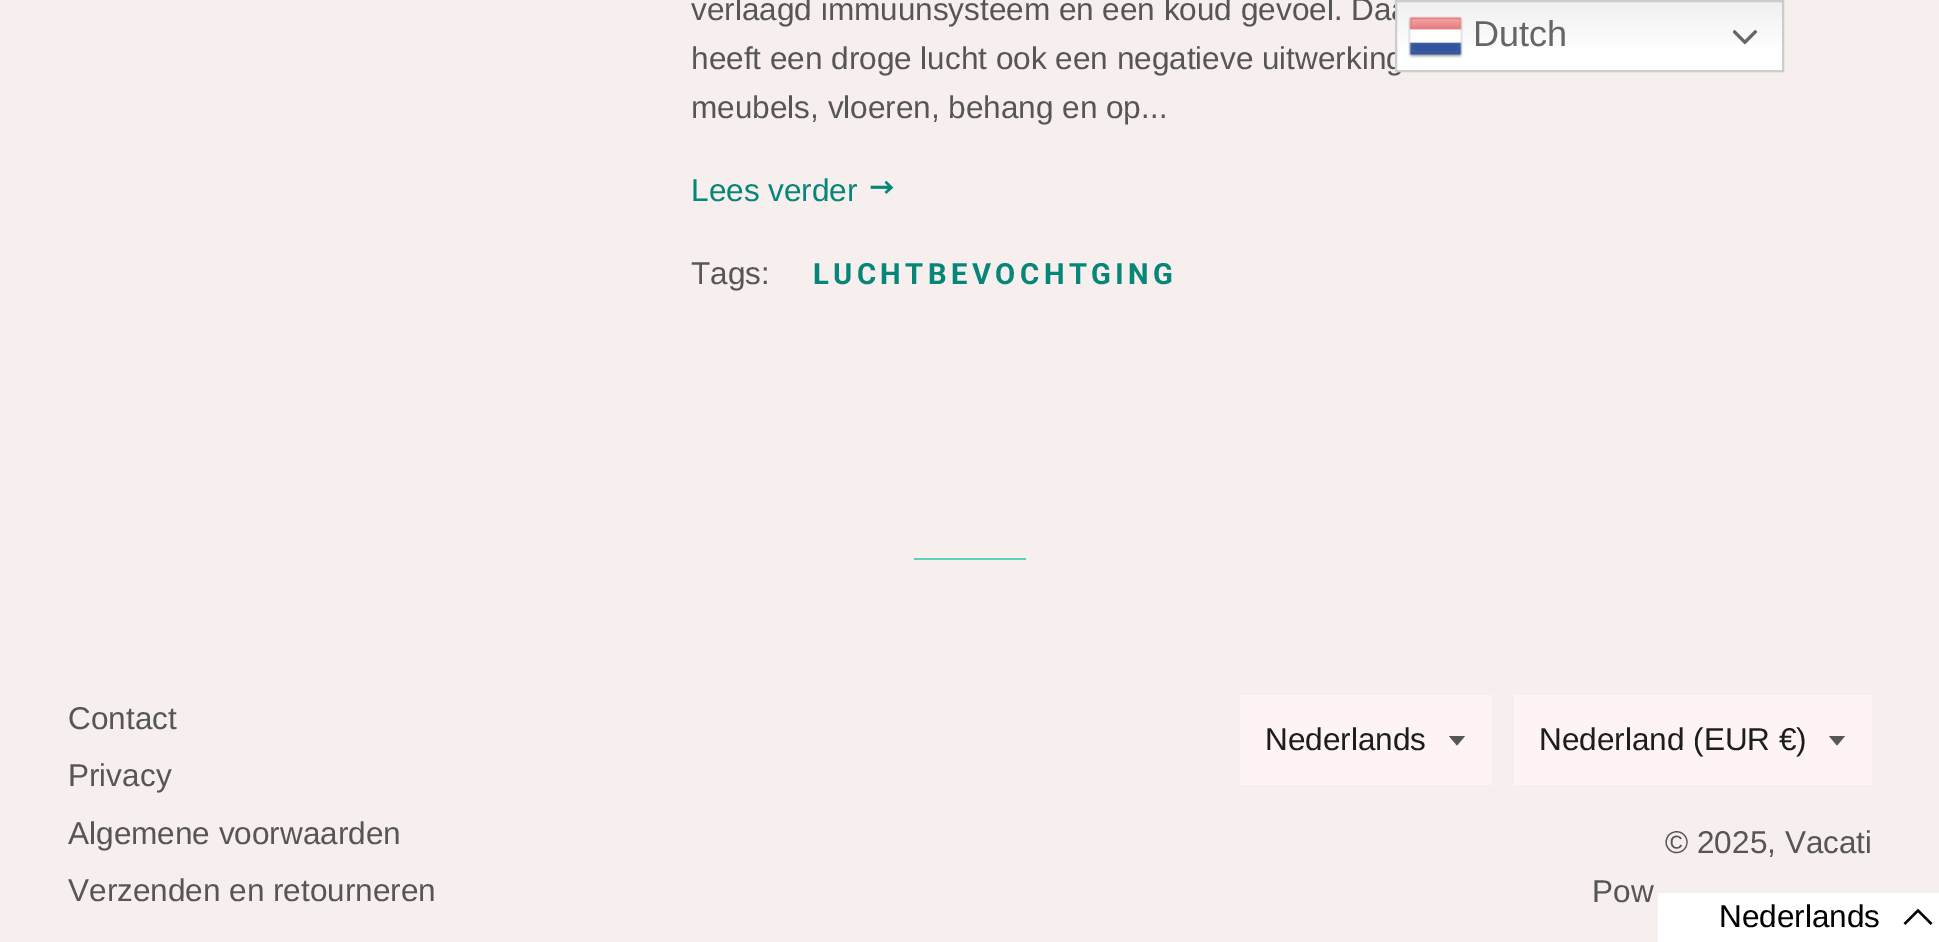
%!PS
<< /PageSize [1939 942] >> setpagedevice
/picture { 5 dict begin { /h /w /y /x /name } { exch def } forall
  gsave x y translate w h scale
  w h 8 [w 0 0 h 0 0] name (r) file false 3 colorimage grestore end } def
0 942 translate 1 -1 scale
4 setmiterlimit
0.969 0.933 0.933 setrgbcolor
0 0 1939 942 rectfill
/LiberationSans-Regular [31.5 0 0 -31.5 0 0] selectfont
0.337 setgray
691 20 moveto (verlaagd immuunsysteem en een koud gevoel. Daa) show
691 69 moveto (heeft een droge lucht ook een negatieve uitwerking) show
691 118 moveto (meubels, vloeren, behang en op...) show
0.02 0.525 0.467 setrgbcolor
691 201 moveto (Lees verder) show
(img1.rgb) 870 180 24 14 picture
0.337 setgray
691 284 moveto (Tags:) show
/Roboto-Bold [29.25 0 0 -29.25 0 0] selectfont
0.02 0.525 0.467 setrgbcolor
813 284 moveto 4.4 0 (LUCHTBEVOCHTGING) ashow
0.365 0.824 0.706 setrgbcolor
914 558 112 2 rectfill
/LiberationSans-Regular [31.5 0 0 -31.5 0 0] selectfont
0.337 setgray
68 729 moveto (Contact) show
68 786 moveto (Privacy) show
68 844 moveto (Algemene voorwaarden) show
68 901 moveto (Verzenden en retourneren) show
1 0.957 0.957 setrgbcolor
1240 695 252 90 rectfill
0.337 setgray
newpath 1449 736 moveto 1457 745.5 lineto 1465 736 lineto closepath fill
0.11 0.114 0.114 setrgbcolor
1265 750 moveto (Nederlands) show
1 0.957 0.957 setrgbcolor
1514 695 358 90 rectfill
0.337 setgray
newpath 1829 736 moveto 1837 745.5 lineto 1845 736 lineto closepath fill
0.11 0.114 0.114 setrgbcolor
1539 750 moveto (Nederland \(EUR €\)) show
0.337 setgray
1665 853 moveto (© 2025, Vacati) show
1592 902 moveto (Pow) show
gsave newpath 1397 2 moveto 1782 2 lineto 1782 70 lineto 1397 70 lineto closepath clip newpath
<< /ShadingType 2 /ColorSpace /DeviceRGB /Coords [1590 0 1590 72] /Extend [true true] /Function << /FunctionType 3 /Domain [0 1] /Functions [<< /FunctionType 2 /Domain [0 1] /C0 [0.937 0.937 0.937] /C1 [1 1 1] /N 1 >> << /FunctionType 2 /Domain [0 1] /C0 [1 1 1] /C1 [1 1 1] /N 1 >>] /Bounds [0.7] /Encode [0 1 0 1] >> >> shfill grestore
0.8 setgray
2 setlinewidth
1396 1 387 70 rectstroke
(img2.rgb) 1408 16 55 42 picture
/LiberationSans-Regular [36 0 0 -36 0 0] selectfont
0.4 setgray
1473 46 moveto (Dutch) show
(img3.rgb) 1733 30 24 15 picture
1 setgray
1658 893 281 49 rectfill
/LiberationSans-Regular [31.5 0 0 -31.5 0 0] selectfont
0 setgray
1719 927 moveto (Nederlands) show
2.2 setlinewidth
newpath 1931.5 924 moveto 1918 910.5 lineto 1904.5 924 lineto stroke
showpage
